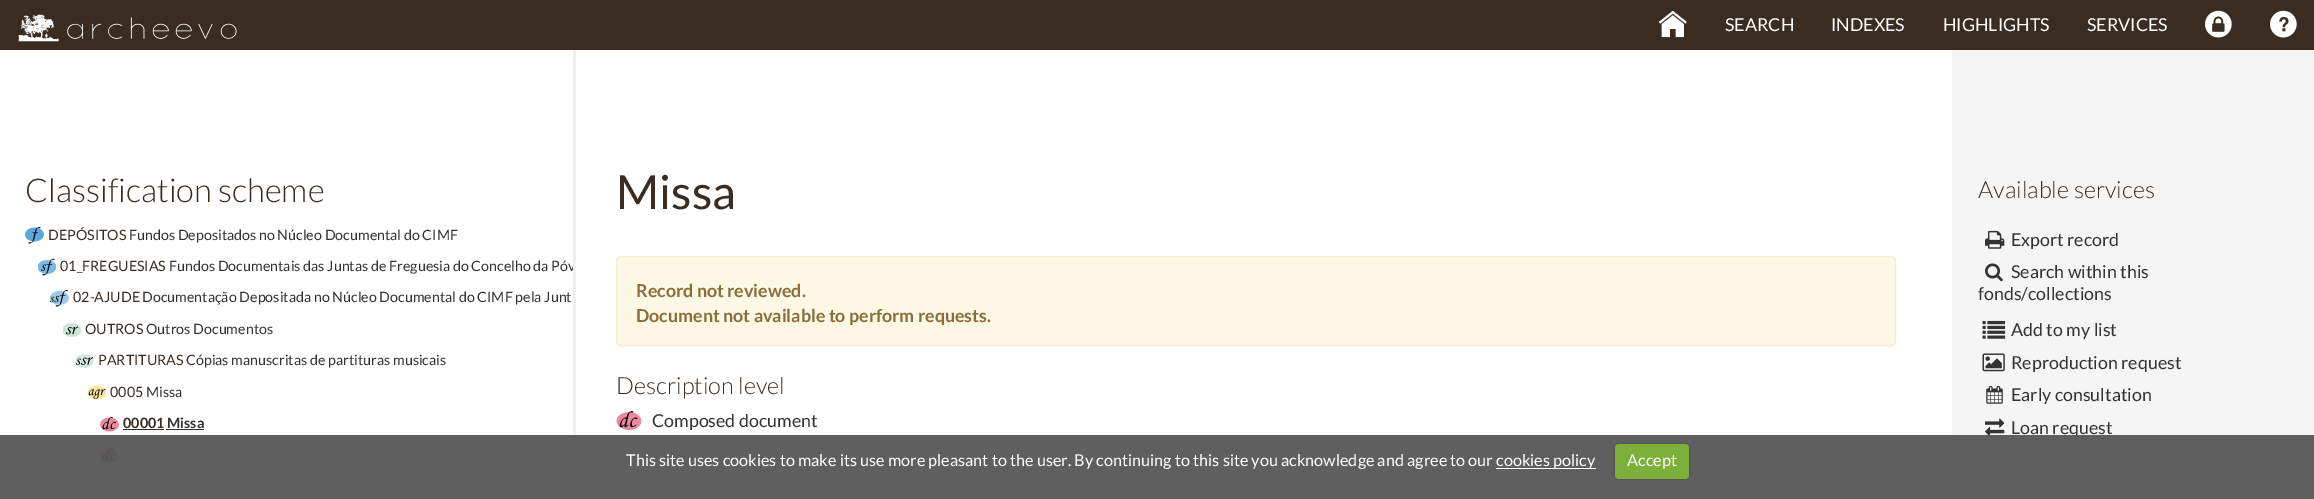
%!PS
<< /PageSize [2314 499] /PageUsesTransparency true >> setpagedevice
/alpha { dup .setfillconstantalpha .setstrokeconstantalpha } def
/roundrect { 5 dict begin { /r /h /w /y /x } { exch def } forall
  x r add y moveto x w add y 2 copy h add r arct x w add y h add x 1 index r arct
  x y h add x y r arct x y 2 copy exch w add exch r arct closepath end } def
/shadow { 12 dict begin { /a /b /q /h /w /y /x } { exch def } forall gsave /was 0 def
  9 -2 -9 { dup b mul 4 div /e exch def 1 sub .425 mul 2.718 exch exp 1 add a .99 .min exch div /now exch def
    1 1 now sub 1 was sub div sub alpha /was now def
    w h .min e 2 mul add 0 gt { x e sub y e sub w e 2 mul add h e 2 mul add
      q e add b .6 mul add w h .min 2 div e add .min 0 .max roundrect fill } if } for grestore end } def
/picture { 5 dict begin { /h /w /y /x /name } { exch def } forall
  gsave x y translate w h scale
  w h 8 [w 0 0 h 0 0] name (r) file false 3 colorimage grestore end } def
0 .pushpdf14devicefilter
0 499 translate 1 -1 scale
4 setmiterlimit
1 setgray
0 0 2314 499 rectfill
0.227 0.173 0.125 setrgbcolor
0 0 2314 50 rectfill
(img1.rgb) 18 14 219 28 picture
(img2.rgb) 1658 10 29 28 picture
/Lato-Regular [17.8 0 0 -17.8 0 0] selectfont
1 setgray
1725 31 moveto (SEARCH) show
1831 31 moveto (INDEXES) show
1943 31 moveto (HIGHLIGHTS) show
2087 31 moveto (SERVICES) show
(img3.rgb) 2205 10 27 28 picture
(img4.rgb) 2270 10 27 28 picture
0.961 setgray
1952 50 362 449 rectfill
/Lato-Regular [14.25 0 0 -14.25 0 0] selectfont
0.2 setgray
169 271 moveto (Fundos Documentais das Juntas de Freguesia do Concelho da Póv) show
0.941 setgray
573 50 3 449 rectfill
/Lato-Light [32.75 0 0 -32.75 0 0] selectfont
0.227 0.173 0.125 setrgbcolor
25 202 moveto (Classification scheme) show
(img5.rgb) 25 227 19 17 picture
/Lato-Regular [14.25 0 0 -14.25 0 0] selectfont
48 240 moveto (DEPÓSITOS) show
0.2 setgray
129 240 moveto (Fundos Depositados no Núcleo Documental do CIMF) show
(img6.rgb) 38 258 18 18 picture
0.227 0.173 0.125 setrgbcolor
60 271 moveto (01_FREGUESIAS) show
(img7.rgb) 50 290 19 17 picture
73 302 moveto (02-AJUDE) show
0.2 setgray
142 302 moveto (Documentação Depositada no Núcleo Documental do CIMF pela Junt) show
(img8.rgb) 63 323 18 14 picture
0.227 0.173 0.125 setrgbcolor
85 334 moveto (OUTROS) show
0.2 setgray
146 334 moveto (Outros Documentos) show
(img9.rgb) 75 354 19 14 picture
0.227 0.173 0.125 setrgbcolor
98 365 moveto (PARTITURAS) show
0.2 setgray
186 365 moveto (Cópias manuscritas de partituras musicais) show
(img10.rgb) 88 385 18 15 picture
0.227 0.173 0.125 setrgbcolor
110 397 moveto (0005) show
0.2 setgray
146 397 moveto (Missa) show
(img11.rgb) 100 417 19 15 picture
/Lato-Bold [14.25 0 0 -14.25 0 0] selectfont
0.227 0.173 0.125 setrgbcolor
123 428 moveto (00001) show
123 429 41 1 rectfill
0.2 setgray
167 428 moveto (Missa) show
166 429 38 1 rectfill
(img12.rgb) 100 448 19 15 picture
/Lato-Regular [47 0 0 -47 0 0] selectfont
0.227 0.173 0.125 setrgbcolor
616 209 moveto (Missa) show
0.988 0.973 0.89 setrgbcolor
616.5 256.5 1279 89 4.5 roundrect gsave fill grestore
0.98 0.922 0.8 setrgbcolor
stroke
/Lato-Bold [17.8 0 0 -17.8 0 0] selectfont
0.541 0.427 0.231 setrgbcolor
636 297 moveto (Record not reviewed.) show
636 322 moveto (Document not available to perform requests.) show
/Lato-Light [23.5 0 0 -23.5 0 0] selectfont
0.227 0.173 0.125 setrgbcolor
616 394 moveto (Description level) show
(img13.rgb) 616 411 25 19 picture
/Lato-Regular [17.8 0 0 -17.8 0 0] selectfont
0.2 setgray
652 427 moveto (Composed document) show
/Lato-Light [23.5 0 0 -23.5 0 0] selectfont
0.227 0.173 0.125 setrgbcolor
1978 198 moveto (Available services) show
(img14.rgb) 1985 230 20 19 picture
/Lato-Regular [17.8 0 0 -17.8 0 0] selectfont
0.2 setgray
2011 246 moveto (Export record) show
(img15.rgb) 1985 263 18 19 picture
2011 278 moveto (Search within this) show
1978 300 moveto (fonds/collections) show
(img16.rgb) 1982 320 24 19 picture
2011 336 moveto (Add to my list) show
(img17.rgb) 1982 353 23 19 picture
2011 369 moveto (Reproduction request) show
(img18.rgb) 1986 385 17 19 picture
2011 401 moveto (Early consultation) show
(img19.rgb) 1985 418 20 19 picture
2011 434 moveto (Loan request) show
0.95 alpha
0.337 setgray
0 435 2314 64 rectfill
/Lato-Regular [16.25 0 0 -16.25 0 0] selectfont
1 alpha
1 setgray
626 466 moveto (This site uses cookies to make its use more pleasant to the user. By continuing to this site you acknowledge and agree to our) show
1496 468 100 1 rectfill
1496 466 moveto (cookies policy) show
0 setgray
1615 444 74 35 4 1 0.25 shadow
0.49 0.686 0.231 setrgbcolor
1615 444 74 35 4 roundrect fill
1 setgray
1627 466 moveto (Accept) show
.poppdf14devicefilter showpage
